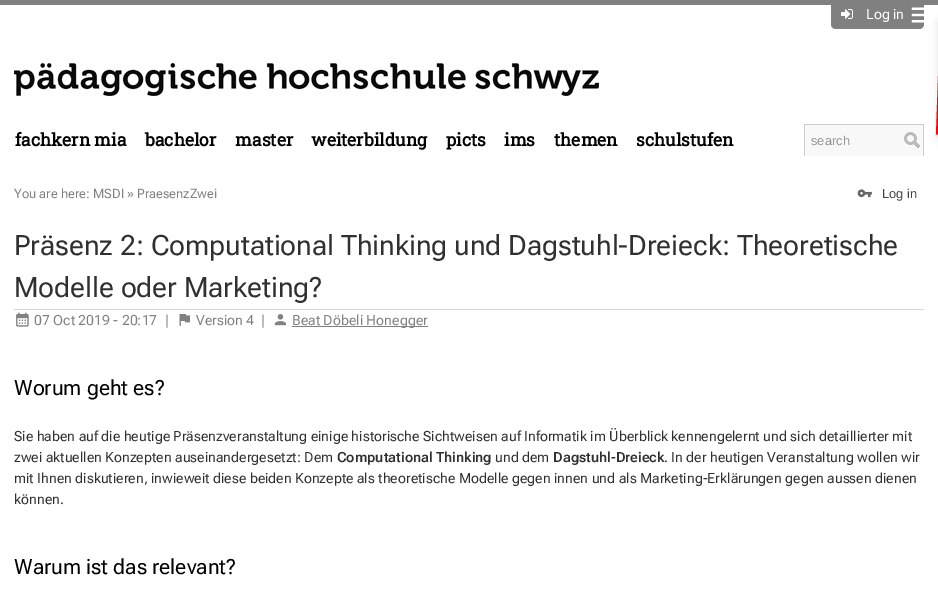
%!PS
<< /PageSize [938 590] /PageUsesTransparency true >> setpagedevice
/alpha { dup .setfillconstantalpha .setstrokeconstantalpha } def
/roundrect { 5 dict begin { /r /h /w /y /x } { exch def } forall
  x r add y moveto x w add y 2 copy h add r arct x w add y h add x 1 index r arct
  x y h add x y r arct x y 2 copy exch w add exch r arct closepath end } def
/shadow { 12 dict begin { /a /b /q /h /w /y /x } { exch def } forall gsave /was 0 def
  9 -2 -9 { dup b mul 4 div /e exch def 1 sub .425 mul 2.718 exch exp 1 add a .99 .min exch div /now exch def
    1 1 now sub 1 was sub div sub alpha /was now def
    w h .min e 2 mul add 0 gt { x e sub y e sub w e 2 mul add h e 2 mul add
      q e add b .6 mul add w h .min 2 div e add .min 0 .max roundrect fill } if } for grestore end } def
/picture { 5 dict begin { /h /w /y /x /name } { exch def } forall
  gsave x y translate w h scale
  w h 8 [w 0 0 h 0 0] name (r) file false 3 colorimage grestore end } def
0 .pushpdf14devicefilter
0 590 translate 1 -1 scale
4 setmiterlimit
1 setgray
0 0 938 590 rectfill
0.502 setgray
0 0 938 5 rectfill
newpath 831 0 moveto 924 0 lineto 924 24 lineto 924 27 922 29 919 29 curveto 836 29 lineto 833 29 831 27 831 24 curveto closepath fill
(img1.rgb) 841 9 12 10 picture
/RobotoFlex-Italic [14 0 0 -14 0 0] selectfont
1 setgray
866 19 moveto (Log in) show
(img2.rgb) 14 63 585 33 picture
(img3.rgb) 911 7 13 16 picture
/RobotoSlab-Bold [17.5 0 0 -17.5 0 0] selectfont
0 setgray
15 146 moveto (fachkern mia) show
145 146 moveto (bachelor) show
235 146 moveto (master) show
311 146 moveto (weiterbildung) show
446 146 moveto (picts) show
504 146 moveto (ims) show
554 146 moveto (themen) show
636 146 moveto (schulstufen) show
0.973 setgray
805 125 118 31 rectfill
0.8 setgray
804 124 120 1 rectfill
923 124 1 32 rectfill
804 124 1 32 rectfill
/LiberationSans-Regular [12.9 0 0 -12.9 0 0] selectfont
0.58 setgray
811 145 moveto (search) show
(img4.rgb) 904 132 16 16 picture
0 setgray
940 22 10 117 0 4 0.2 shadow
1 setgray
newpath 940 18 moveto 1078 22 lineto 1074 139 lineto 936 135 lineto closepath fill
1 0 0 setrgbcolor
2 setlinewidth
newpath 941 18.5 moveto 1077 23.5 lineto 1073 138.5 lineto 937 133.5 lineto closepath stroke
/RobotoFlex-Italic [12.9 0 0 -12.9 0 0] selectfont
0.506 setgray
14 198 moveto (You are here: MSDI » PraesenzZwei) show
(img5.rgb) 857 189 15 9 picture
/LiberationSans-Regular [12.9 0 0 -12.9 0 0] selectfont
0.267 setgray
882 198 moveto (Log in) show
0.835 0.839 0.867 setrgbcolor
14 309 910 1 rectfill
/RobotoFlex-Italic [28 0 0 -28 0 0] selectfont
0.188 setgray
14 255 moveto (Präsenz 2: Computational Thinking und Dagstuhl-Dreieck: Theoretische) show
14 297 moveto (Modelle oder Marketing?) show
(img6.rgb) 16 312 13 15 picture
/RobotoFlex-Italic [14 0 0 -14 0 0] selectfont
0.506 setgray
34 325 moveto (07 Oct 2019 - 20:17) show
165 325 moveto (|) show
(img7.rgb) 179 314 11 12 picture
196 325 moveto (Version 4) show
261 325 moveto (|) show
(img8.rgb) 274 314 12 12 picture
292 326 136 1 rectfill
292 325 moveto (Beat Döbeli Honegger) show
/RobotoFlex-Italic [21 0 0 -21 0 0] selectfont
0 setgray
14 395 moveto (Worum geht es?) show
/RobotoFlex-Italic [14 0 0 -14 0 0] selectfont
0.188 setgray
14 441 moveto (Sie haben auf die heutige Präsenzveranstaltung einige historische Sichtweisen auf Informatik im Überblick kennengelernt und sich detaillierter mit) show
14 462 moveto (zwei aktuellen Konzepten auseinandergesetzt: Dem) show
/RobotoFlex-SemiBoldItalic [14 0 0 -14 0 0] selectfont
337 462 moveto (Computational Thinking) show
/RobotoFlex-Italic [14 0 0 -14 0 0] selectfont
495 462 moveto (und dem) show
/RobotoFlex-SemiBoldItalic [14 0 0 -14 0 0] selectfont
553 462 moveto (Dagstuhl-Dreieck) show
/RobotoFlex-Italic [14 0 0 -14 0 0] selectfont
664 462 moveto (. In der heutigen Veranstaltung wollen wir) show
14 483 moveto (mit Ihnen diskutieren, inwieweit diese beiden Konzepte als theoretische Modelle gegen innen und als Marketing-Erklärungen gegen aussen dienen) show
14 504 moveto (können.) show
/RobotoFlex-Italic [21 0 0 -21 0 0] selectfont
0 setgray
14 574 moveto (Warum ist das relevant?) show
.poppdf14devicefilter showpage
